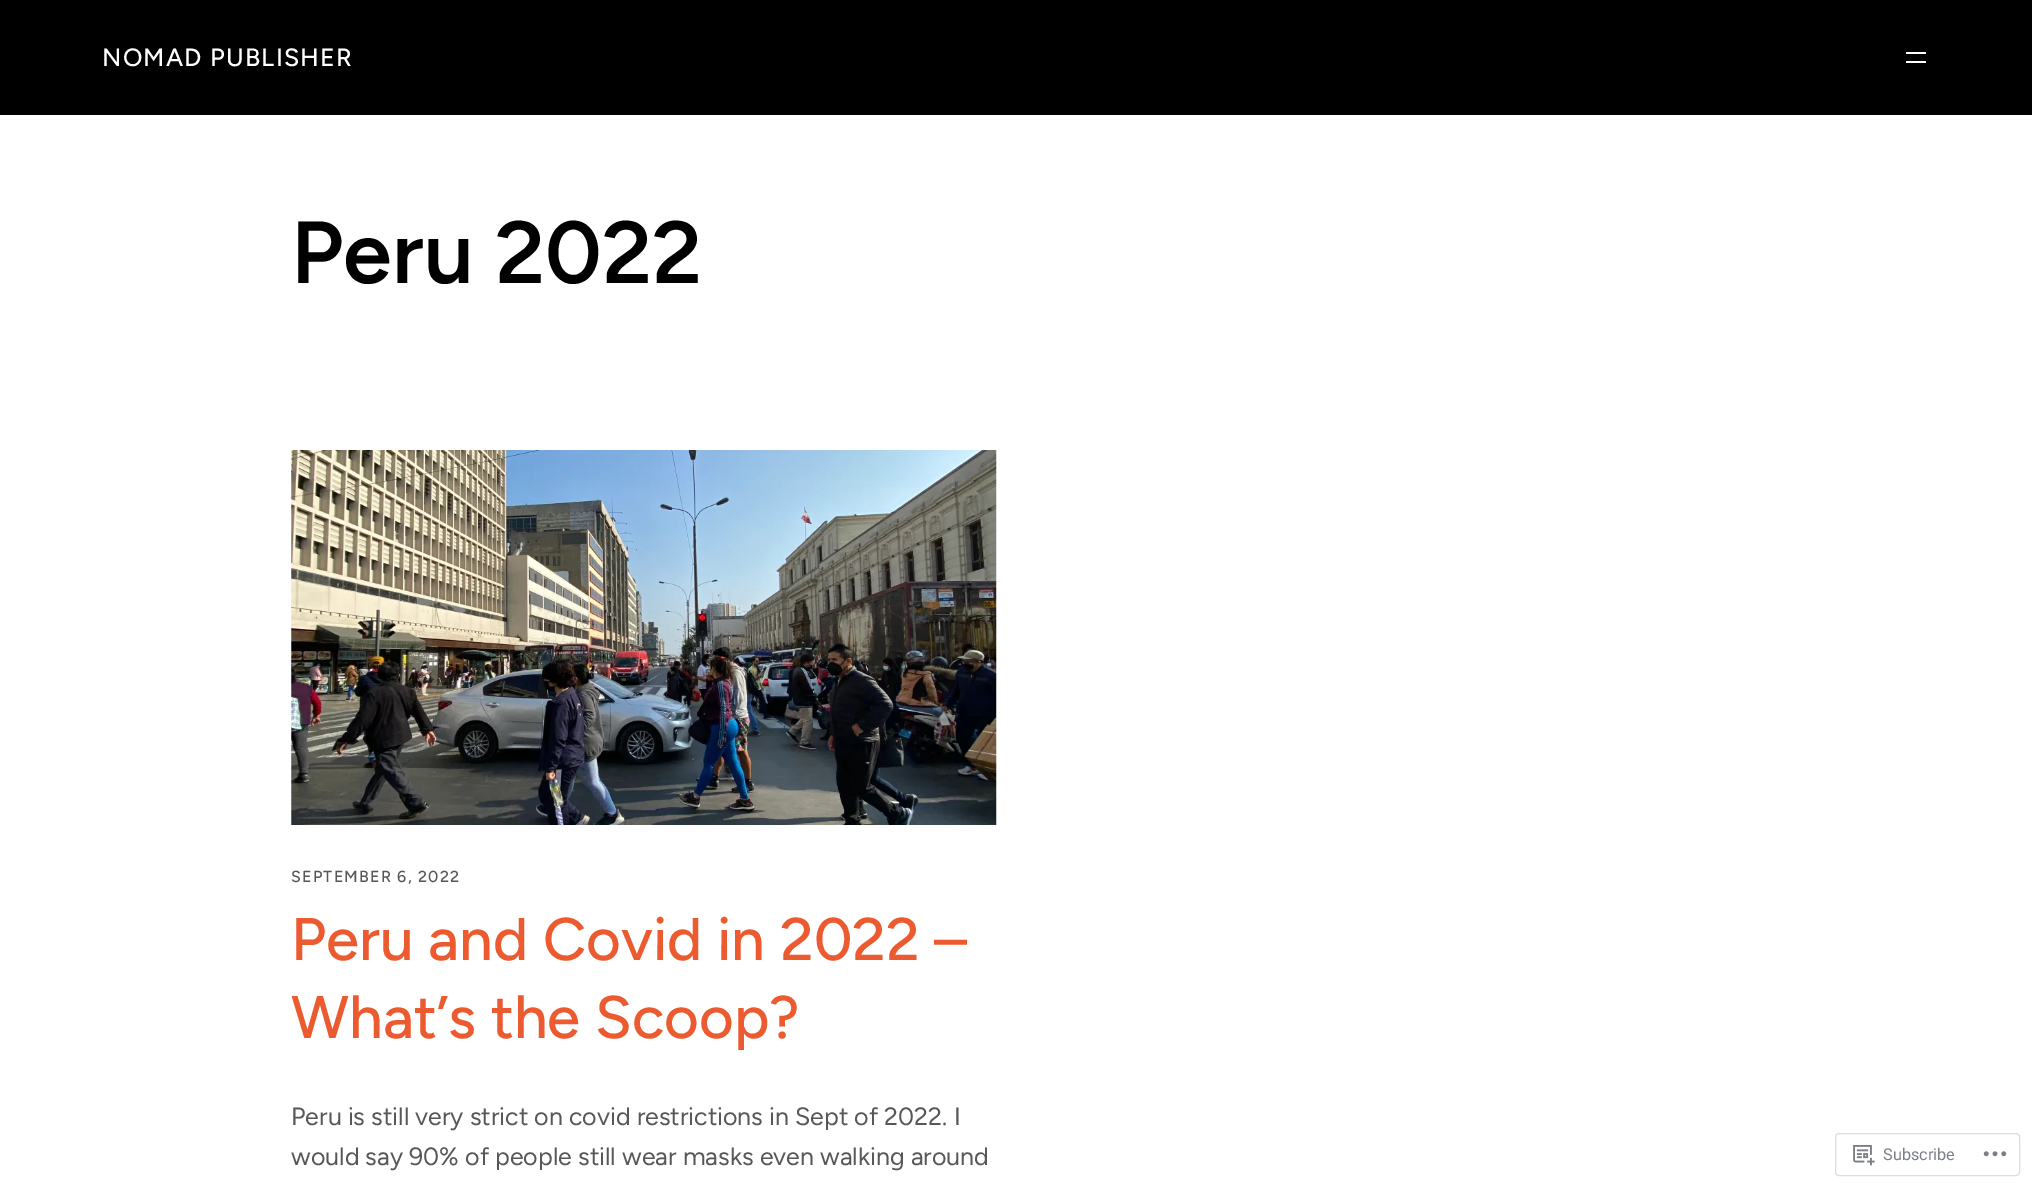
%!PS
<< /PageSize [2032 1188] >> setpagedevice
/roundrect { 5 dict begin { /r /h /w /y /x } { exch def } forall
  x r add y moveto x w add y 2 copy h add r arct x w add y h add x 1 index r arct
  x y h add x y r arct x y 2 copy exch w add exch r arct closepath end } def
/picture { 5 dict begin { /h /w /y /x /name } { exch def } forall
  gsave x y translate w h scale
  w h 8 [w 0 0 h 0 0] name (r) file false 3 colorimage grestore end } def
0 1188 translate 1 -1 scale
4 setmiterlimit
1 setgray
0 0 2032 1188 rectfill
0 setgray
0 0 2032 115 rectfill
/Figtree-Medium [25 0 0 -25 0 0] selectfont
1 setgray
102 66 moveto 1.25 0 (NOMAD PUBLISHER) ashow
1906 52 20 2 rectfill
1906 61 20 2 rectfill
/Figtree-SemiBold [88 0 0 -88 0 0] selectfont
0 setgray
291 283 moveto (Peru 2022) show
(img1.rgb) 291 450 706 375 picture
/Figtree-Medium [16 0 0 -16 0 0] selectfont
0.341 setgray
291 882 moveto 1.25 0 (SEPTEMBER 6, 2022) ashow
/Figtree-Medium [60 0 0 -60 0 0] selectfont
0.925 0.353 0.188 setrgbcolor
291 960 moveto (Peru and Covid in 2022 –) show
291 1038 moveto (What’s the Scoop?) show
/Figtree-Regular [25 0 0 -25 0 0] selectfont
0.341 setgray
291 1125 moveto (Peru is still very strict on covid restrictions in Sept of 2022. I) show
291 1165 moveto (would say 90% of people still wear masks even walking around) show
0.867 0.867 0.875 setrgbcolor
1835.5 1133.5 184 42 3.5 roundrect stroke
(img2.rgb) 1853 1145 22 21 picture
/Roboto-Regular [16.25 0 0 -16.25 0 0] selectfont
0.482 0.498 0.522 setrgbcolor
1883 1160 moveto (Subscribe) show
(img3.rgb) 1983 1151 24 6 picture
showpage
